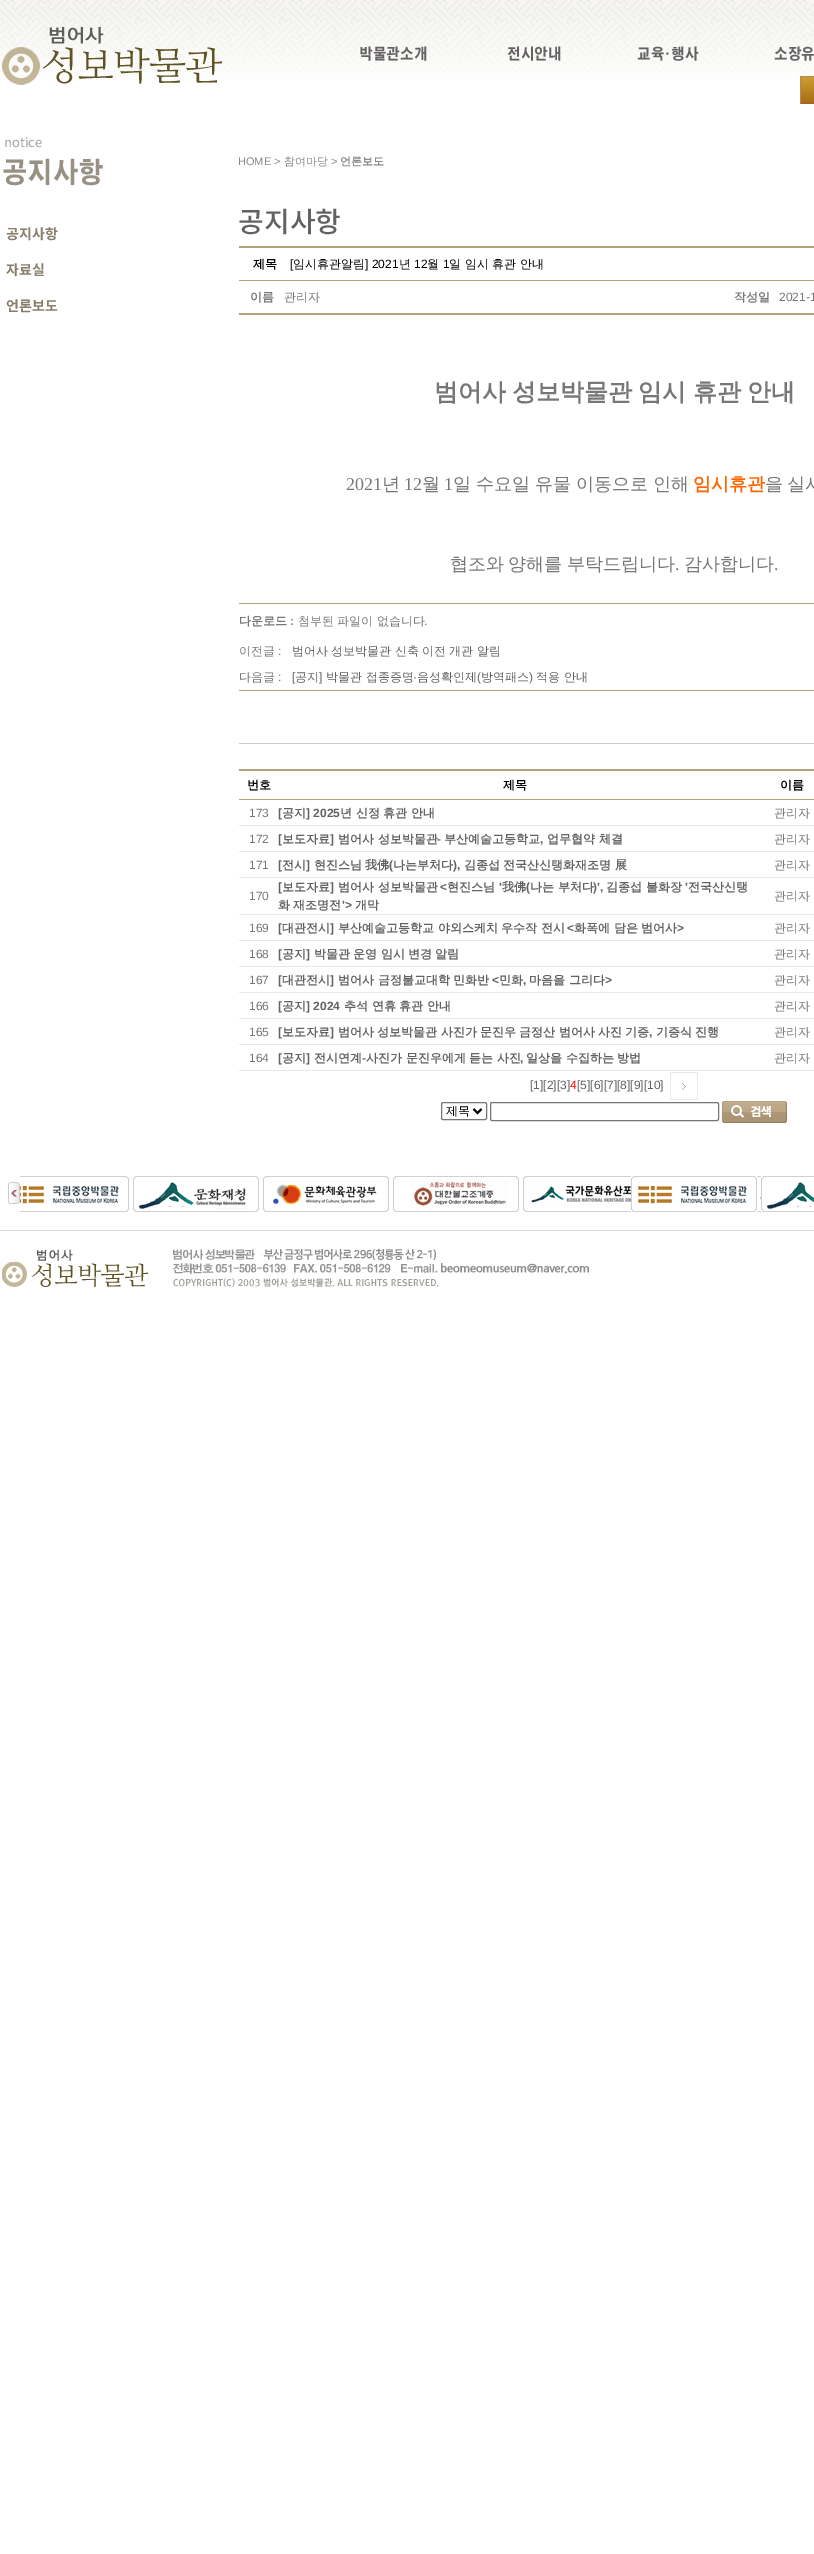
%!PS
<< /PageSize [814 2554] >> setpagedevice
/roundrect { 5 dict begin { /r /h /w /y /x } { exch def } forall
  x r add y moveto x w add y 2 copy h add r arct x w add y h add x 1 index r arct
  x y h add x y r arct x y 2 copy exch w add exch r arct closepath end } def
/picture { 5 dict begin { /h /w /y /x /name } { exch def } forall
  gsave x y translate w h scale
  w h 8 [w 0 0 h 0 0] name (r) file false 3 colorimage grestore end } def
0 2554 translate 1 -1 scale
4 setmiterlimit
1 setgray
0 0 814 2554 rectfill
(img1.rgb) 0 0 814 80 picture
(img2.rgb) 2 27 220 58 picture
/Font-Regular [15 0 0 -15 0 0] selectfont
0.388 0.38 0.38 setrgbcolor
359 59 moveto (박물관소개) show
507 59 moveto (전시안내) show
637 59 moveto (교육·행사) show
774 59 moveto (소장유) show
(img3.rgb) 800 76 14 28 picture
/NotoSansKR-Regular [13 0 0 -13 0 0] selectfont
0.643 setgray
4 147 moveto (notice) show
/Font-Regular [28 0 0 -28 0 0] selectfont
0.592 0.565 0.514 setrgbcolor
2 182 moveto (공지사항) show
/NotoSansKR-Bold [14 0 0 -14 0 0] selectfont
0.529 0.49 0.408 setrgbcolor
6 239 moveto (공지사항) show
6 275 moveto (자료실) show
6 311 moveto (언론보도) show
/LiberationSans-Regular [11 0 0 -11 0 0] selectfont
0.537 setgray
238 165 moveto (HOME >) show
/WenQuanYiZenHei-Medium [11 0 0 -11 0 0] selectfont
284 165 moveto (참여마당) show
/LiberationSans-Regular [11 0 0 -11 0 0] selectfont
331 165 moveto (>) show
/WenQuanYiZenHei-Bold [11 0 0 -11 0 0] selectfont
340 165 moveto (언론보도) show
/NotoSansKR-Medium [28 0 0 -28 0 0] selectfont
0.388 0.38 0.38 setrgbcolor
238 232 moveto (공지사항) show
0.71 0.631 0.467 setrgbcolor
239 246 575 2 rectfill
/WenQuanYiZenHei-Bold [12 0 0 -12 0 0] selectfont
0 setgray
253 268 moveto (제목) show
/LiberationSans-Regular [12 0 0 -12 0 0] selectfont
290 268 moveto ([) show
/WenQuanYiZenHei-Medium [12 0 0 -12 0 0] selectfont
293 268 moveto (임시휴관알림) show
/LiberationSans-Regular [12 0 0 -12 0 0] selectfont
365 268 moveto (] 2021) show
/WenQuanYiZenHei-Medium [12 0 0 -12 0 0] selectfont
399 268 moveto (년) show
/LiberationSans-Regular [12 0 0 -12 0 0] selectfont
414 268 moveto (12) show
/WenQuanYiZenHei-Medium [12 0 0 -12 0 0] selectfont
427 268 moveto (월) show
/LiberationSans-Regular [12 0 0 -12 0 0] selectfont
443 268 moveto (1) show
/WenQuanYiZenHei-Medium [12 0 0 -12 0 0] selectfont
449 268 moveto (일 임시 휴관 안내) show
0.71 0.631 0.467 setrgbcolor
239 280 575 1 rectfill
/WenQuanYiZenHei-Bold [12 0 0 -12 0 0] selectfont
0.467 setgray
250 301 moveto (이름) show
/WenQuanYiZenHei-Medium [12 0 0 -12 0 0] selectfont
284 301 moveto (관리자) show
/WenQuanYiZenHei-Bold [12 0 0 -12 0 0] selectfont
734 301 moveto (작성일) show
/LiberationSans-Regular [12 0 0 -12 0 0] selectfont
779 301 moveto (2021-1) show
0.71 0.631 0.467 setrgbcolor
239 313 575 2 rectfill
/WenQuanYiZenHei-Bold [24 0 0 -24 0 0] selectfont
0.467 setgray
434 400 moveto -1 0 32 (범어사 성보박물관 임시 휴관 안내) widthshow
/LiberationSerif-Regular [18 0 0 -18 0 0] selectfont
346 490 moveto (2021) show
/WenQuanYiZenHei-Medium [18 0 0 -18 0 0] selectfont
382 490 moveto (년) show
/LiberationSerif-Regular [18 0 0 -18 0 0] selectfont
404 490 moveto (12) show
/WenQuanYiZenHei-Medium [18 0 0 -18 0 0] selectfont
422 490 moveto (월) show
/LiberationSerif-Regular [18 0 0 -18 0 0] selectfont
444 490 moveto (1) show
/WenQuanYiZenHei-Medium [18 0 0 -18 0 0] selectfont
453 490 moveto -0.5 0 32 (일 수요일 유물 이동으로 인해) widthshow
/WenQuanYiZenHei-Bold [18 0 0 -18 0 0] selectfont
1 0.4 0 setrgbcolor
693 490 moveto (임시휴관) show
/WenQuanYiZenHei-Medium [18 0 0 -18 0 0] selectfont
0.467 setgray
765 490 moveto -1 0 32 (을 실시) widthshow
450 570 moveto -1 0 32 (협조와 양해를 부탁드립니다) widthshow
/LiberationSerif-Regular [18 0 0 -18 0 0] selectfont
675 570 moveto (.) show
/WenQuanYiZenHei-Medium [18 0 0 -18 0 0] selectfont
684 570 moveto (감사합니다) show
/LiberationSerif-Regular [18 0 0 -18 0 0] selectfont
774 570 moveto (.) show
0.71 0.631 0.467 setrgbcolor
239 603 575 1 rectfill
/WenQuanYiZenHei-Bold [12 0 0 -12 0 0] selectfont
0.467 setgray
239 625 moveto (다운로드) show
/LiberationSans-Bold [12 0 0 -12 0 0] selectfont
290 625 moveto (:) show
/WenQuanYiZenHei-Medium [12 0 0 -12 0 0] selectfont
298 625 moveto -0.25 0 32 (첨부된 파일이 없습니다) widthshow
/LiberationSans-Regular [12 0 0 -12 0 0] selectfont
424 625 moveto (.) show
/WenQuanYiZenHei-Medium [12 0 0 -12 0 0] selectfont
239 655 moveto (이전글) show
/LiberationSans-Regular [12 0 0 -12 0 0] selectfont
278 655 moveto (:) show
/WenQuanYiZenHei-Medium [12 0 0 -12 0 0] selectfont
0.388 0.38 0.38 setrgbcolor
292 655 moveto -0.25 0 32 (범어사 성보박물관 신축 이전 개관 알림) widthshow
0.467 setgray
239 681 moveto (다음글) show
/LiberationSans-Regular [12 0 0 -12 0 0] selectfont
278 681 moveto (:) show
0.388 0.38 0.38 setrgbcolor
292 681 moveto ([) show
/WenQuanYiZenHei-Medium [12 0 0 -12 0 0] selectfont
295 681 moveto (공지) show
/LiberationSans-Regular [12 0 0 -12 0 0] selectfont
319 681 moveto (]) show
/WenQuanYiZenHei-Medium [12 0 0 -12 0 0] selectfont
326 681 moveto (박물관 접종증명) show
/LiberationSans-Regular [12 0 0 -12 0 0] selectfont
413 681 moveto (·) show
/WenQuanYiZenHei-Medium [12 0 0 -12 0 0] selectfont
417 681 moveto (음성확인제) show
/LiberationSans-Regular [12 0 0 -12 0 0] selectfont
477 681 moveto (\() show
/WenQuanYiZenHei-Medium [12 0 0 -12 0 0] selectfont
481 681 moveto (방역패스) show
/LiberationSans-Regular [12 0 0 -12 0 0] selectfont
529 681 moveto (\)) show
/WenQuanYiZenHei-Medium [12 0 0 -12 0 0] selectfont
536 681 moveto (적용 안내) show
0.71 0.631 0.467 setrgbcolor
239 690 575 1 rectfill
0.8 setgray
239 743 575 1 rectfill
0.71 0.631 0.467 setrgbcolor
239 769 575 2 rectfill
/WenQuanYiZenHei-Bold [12 0 0 -12 0 0] selectfont
0 setgray
247 789 moveto (번호) show
503 789 moveto (제목) show
780 789 moveto (이름) show
0.71 0.631 0.467 setrgbcolor
239 799 575 1 rectfill
/LiberationSans-Regular [12 0 0 -12 0 0] selectfont
0.467 setgray
249 817 moveto (173) show
/LiberationSans-Bold [12 0 0 -12 0 0] selectfont
0.388 0.38 0.38 setrgbcolor
278 817 moveto ([) show
/WenQuanYiZenHei-Bold [12 0 0 -12 0 0] selectfont
282 817 moveto (공지) show
/LiberationSans-Bold [12 0 0 -12 0 0] selectfont
306 817 moveto (] 2025) show
/WenQuanYiZenHei-Bold [12 0 0 -12 0 0] selectfont
340 817 moveto (년 신정 휴관 안내) show
/WenQuanYiZenHei-Medium [12 0 0 -12 0 0] selectfont
0.467 setgray
774 817 moveto (관리자) show
0.914 setgray
239 825 575 1 rectfill
/LiberationSans-Regular [12 0 0 -12 0 0] selectfont
0.467 setgray
249 843 moveto (172) show
/LiberationSans-Bold [12 0 0 -12 0 0] selectfont
0.388 0.38 0.38 setrgbcolor
278 843 moveto ([) show
/WenQuanYiZenHei-Bold [12 0 0 -12 0 0] selectfont
282 843 moveto (보도자료) show
/LiberationSans-Bold [12 0 0 -12 0 0] selectfont
330 843 moveto (]) show
/WenQuanYiZenHei-Bold [12 0 0 -12 0 0] selectfont
338 843 moveto (범어사 성보박물관) show
/LiberationSans-Bold [12 0 0 -12 0 0] selectfont
437 843 moveto (-) show
/WenQuanYiZenHei-Bold [12 0 0 -12 0 0] selectfont
444 843 moveto (부산예술고등학교) show
547 843 moveto (업무협약 체결) show
/LiberationSans-Bold [12 0 0 -12 0 0] selectfont
540 843 moveto (,) show
/WenQuanYiZenHei-Medium [12 0 0 -12 0 0] selectfont
0.467 setgray
774 843 moveto (관리자) show
0.914 setgray
239 851 575 1 rectfill
/LiberationSans-Regular [12 0 0 -12 0 0] selectfont
0.467 setgray
249 869 moveto (171) show
/LiberationSans-Bold [12 0 0 -12 0 0] selectfont
0.388 0.38 0.38 setrgbcolor
278 869 moveto ([) show
/WenQuanYiZenHei-Bold [12 0 0 -12 0 0] selectfont
282 869 moveto (전시) show
/LiberationSans-Bold [12 0 0 -12 0 0] selectfont
306 869 moveto (]) show
/WenQuanYiZenHei-Bold [12 0 0 -12 0 0] selectfont
314 869 moveto -0.25 0 32 (현진스님 我佛) widthshow
/LiberationSans-Bold [12 0 0 -12 0 0] selectfont
389 869 moveto (\() show
/WenQuanYiZenHei-Bold [12 0 0 -12 0 0] selectfont
393 869 moveto (나는부처다) show
/LiberationSans-Bold [12 0 0 -12 0 0] selectfont
453 869 moveto (\),) show
/WenQuanYiZenHei-Bold [12 0 0 -12 0 0] selectfont
464 869 moveto -0.25 0 32 (김종섭 전국산신탱화재조명 展) widthshow
/WenQuanYiZenHei-Medium [12 0 0 -12 0 0] selectfont
0.467 setgray
774 869 moveto (관리자) show
0.914 setgray
239 877 575 1 rectfill
/LiberationSans-Regular [12 0 0 -12 0 0] selectfont
0.467 setgray
249 900 moveto (170) show
/LiberationSans-Bold [12 0 0 -12 0 0] selectfont
0.388 0.38 0.38 setrgbcolor
278 891 moveto ([) show
/WenQuanYiZenHei-Bold [12 0 0 -12 0 0] selectfont
282 891 moveto (보도자료) show
/LiberationSans-Bold [12 0 0 -12 0 0] selectfont
330 891 moveto (]) show
/WenQuanYiZenHei-Bold [12 0 0 -12 0 0] selectfont
338 891 moveto (범어사 성보박물관) show
/LiberationSans-Bold [12 0 0 -12 0 0] selectfont
440 891 moveto (<) show
/WenQuanYiZenHei-Bold [12 0 0 -12 0 0] selectfont
447 891 moveto (현진스님) show
/LiberationSans-Bold [12 0 0 -12 0 0] selectfont
499 891 moveto (') show
/WenQuanYiZenHei-Bold [12 0 0 -12 0 0] selectfont
502 891 moveto (我佛) show
/LiberationSans-Bold [12 0 0 -12 0 0] selectfont
526 891 moveto (\() show
/WenQuanYiZenHei-Bold [12 0 0 -12 0 0] selectfont
530 891 moveto (나는 부처다) show
/LiberationSans-Bold [12 0 0 -12 0 0] selectfont
593 891 moveto (\)',) show
/WenQuanYiZenHei-Bold [12 0 0 -12 0 0] selectfont
606 891 moveto (김종섭 불화장) show
/LiberationSans-Bold [12 0 0 -12 0 0] selectfont
685 891 moveto (') show
/WenQuanYiZenHei-Bold [12 0 0 -12 0 0] selectfont
688 891 moveto (전국산신탱) show
278 909 moveto -0.25 0 32 (화 재조명전) widthshow
/LiberationSans-Bold [12 0 0 -12 0 0] selectfont
342 909 moveto ('>) show
/WenQuanYiZenHei-Bold [12 0 0 -12 0 0] selectfont
355 909 moveto (개막) show
/WenQuanYiZenHei-Medium [12 0 0 -12 0 0] selectfont
0.467 setgray
774 900 moveto (관리자) show
0.914 setgray
239 914 575 1 rectfill
/LiberationSans-Regular [12 0 0 -12 0 0] selectfont
0.467 setgray
249 932 moveto (169) show
/LiberationSans-Bold [12 0 0 -12 0 0] selectfont
0.388 0.38 0.38 setrgbcolor
278 932 moveto ([) show
/WenQuanYiZenHei-Bold [12 0 0 -12 0 0] selectfont
282 932 moveto (대관전시) show
/LiberationSans-Bold [12 0 0 -12 0 0] selectfont
330 932 moveto (]) show
/WenQuanYiZenHei-Bold [12 0 0 -12 0 0] selectfont
338 932 moveto (부산예술고등학교 야외스케치 우수작 전시) show
/LiberationSans-Bold [12 0 0 -12 0 0] selectfont
567 932 moveto (<) show
/WenQuanYiZenHei-Bold [12 0 0 -12 0 0] selectfont
574 932 moveto (화폭에 담은 범어사) show
/LiberationSans-Bold [12 0 0 -12 0 0] selectfont
677 932 moveto (>) show
/WenQuanYiZenHei-Medium [12 0 0 -12 0 0] selectfont
0.467 setgray
774 932 moveto (관리자) show
0.914 setgray
239 940 575 1 rectfill
/LiberationSans-Regular [12 0 0 -12 0 0] selectfont
0.467 setgray
249 958 moveto (168) show
/LiberationSans-Bold [12 0 0 -12 0 0] selectfont
0.388 0.38 0.38 setrgbcolor
278 958 moveto ([) show
/WenQuanYiZenHei-Bold [12 0 0 -12 0 0] selectfont
282 958 moveto (공지) show
/LiberationSans-Bold [12 0 0 -12 0 0] selectfont
306 958 moveto (]) show
/WenQuanYiZenHei-Bold [12 0 0 -12 0 0] selectfont
314 958 moveto -0.25 0 32 (박물관 운영 임시 변경 알림) widthshow
/WenQuanYiZenHei-Medium [12 0 0 -12 0 0] selectfont
0.467 setgray
774 958 moveto (관리자) show
0.914 setgray
239 966 575 1 rectfill
/LiberationSans-Regular [12 0 0 -12 0 0] selectfont
0.467 setgray
249 984 moveto (167) show
/LiberationSans-Bold [12 0 0 -12 0 0] selectfont
0.388 0.38 0.38 setrgbcolor
278 984 moveto ([) show
/WenQuanYiZenHei-Bold [12 0 0 -12 0 0] selectfont
282 984 moveto (대관전시) show
/LiberationSans-Bold [12 0 0 -12 0 0] selectfont
330 984 moveto (]) show
/WenQuanYiZenHei-Bold [12 0 0 -12 0 0] selectfont
338 984 moveto (범어사 금정불교대학 민화반) show
/LiberationSans-Bold [12 0 0 -12 0 0] selectfont
492 984 moveto (<) show
/WenQuanYiZenHei-Bold [12 0 0 -12 0 0] selectfont
499 984 moveto (민화) show
/LiberationSans-Bold [12 0 0 -12 0 0] selectfont
523 984 moveto (,) show
/WenQuanYiZenHei-Bold [12 0 0 -12 0 0] selectfont
529 984 moveto (마음을 그리다) show
/LiberationSans-Bold [12 0 0 -12 0 0] selectfont
605 984 moveto (>) show
/WenQuanYiZenHei-Medium [12 0 0 -12 0 0] selectfont
0.467 setgray
774 984 moveto (관리자) show
0.914 setgray
239 992 575 1 rectfill
/LiberationSans-Regular [12 0 0 -12 0 0] selectfont
0.467 setgray
249 1010 moveto (166) show
/LiberationSans-Bold [12 0 0 -12 0 0] selectfont
0.388 0.38 0.38 setrgbcolor
278 1010 moveto ([) show
/WenQuanYiZenHei-Bold [12 0 0 -12 0 0] selectfont
282 1010 moveto (공지) show
/LiberationSans-Bold [12 0 0 -12 0 0] selectfont
306 1010 moveto (] 2024) show
/WenQuanYiZenHei-Bold [12 0 0 -12 0 0] selectfont
344 1010 moveto (추석 연휴 휴관 안내) show
/WenQuanYiZenHei-Medium [12 0 0 -12 0 0] selectfont
0.467 setgray
774 1010 moveto (관리자) show
0.914 setgray
239 1018 575 1 rectfill
/LiberationSans-Regular [12 0 0 -12 0 0] selectfont
0.467 setgray
249 1036 moveto (165) show
/LiberationSans-Bold [12 0 0 -12 0 0] selectfont
0.388 0.38 0.38 setrgbcolor
278 1036 moveto ([) show
/WenQuanYiZenHei-Bold [12 0 0 -12 0 0] selectfont
282 1036 moveto (보도자료) show
/LiberationSans-Bold [12 0 0 -12 0 0] selectfont
330 1036 moveto (]) show
/WenQuanYiZenHei-Bold [12 0 0 -12 0 0] selectfont
338 1036 moveto -0.25 0 32 (범어사 성보박물관 사진가 문진우 금정산 범어사 사진 기증) widthshow
/LiberationSans-Bold [12 0 0 -12 0 0] selectfont
649 1036 moveto (,) show
/WenQuanYiZenHei-Bold [12 0 0 -12 0 0] selectfont
656 1036 moveto -0.25 0 32 (기증식 진행) widthshow
/WenQuanYiZenHei-Medium [12 0 0 -12 0 0] selectfont
0.467 setgray
774 1036 moveto (관리자) show
0.914 setgray
239 1044 575 1 rectfill
/LiberationSans-Regular [12 0 0 -12 0 0] selectfont
0.467 setgray
249 1062 moveto (164) show
/LiberationSans-Bold [12 0 0 -12 0 0] selectfont
0.388 0.38 0.38 setrgbcolor
278 1062 moveto ([) show
/WenQuanYiZenHei-Bold [12 0 0 -12 0 0] selectfont
282 1062 moveto (공지) show
/LiberationSans-Bold [12 0 0 -12 0 0] selectfont
306 1062 moveto (]) show
/WenQuanYiZenHei-Bold [12 0 0 -12 0 0] selectfont
314 1062 moveto (전시연계) show
/LiberationSans-Bold [12 0 0 -12 0 0] selectfont
362 1062 moveto (-) show
/WenQuanYiZenHei-Bold [12 0 0 -12 0 0] selectfont
366 1062 moveto (사진가 문진우에게 듣는 사진) show
526 1062 moveto (일상을 수집하는 방법) show
/LiberationSans-Bold [12 0 0 -12 0 0] selectfont
520 1062 moveto (,) show
/WenQuanYiZenHei-Medium [12 0 0 -12 0 0] selectfont
0.467 setgray
774 1062 moveto (관리자) show
0.914 setgray
239 1070 575 1 rectfill
/LiberationSans-Regular [12 0 0 -12 0 0] selectfont
0.388 0.38 0.38 setrgbcolor
530 1089 moveto ([1][2][3]) show
1 0 0 setrgbcolor
570 1089 moveto (4) show
0.388 0.38 0.38 setrgbcolor
577 1089 moveto ([5][6][7][8][9][10]) show
(img4.rgb) 670 1072 28 28 picture
0.463 setgray
441.5 1102.5 45 17 1.5 roundrect stroke
0 setgray
2 setlinewidth
newpath 473.5 1109 moveto 477.5 1113 lineto 481.5 1109 lineto stroke
/WenQuanYiZenHei-Medium [12 0 0 -12 0 0] selectfont
446 1115 moveto (제목) show
0.463 setgray
1 setlinewidth
490.5 1102.5 228 18 1.5 roundrect stroke
(img5.rgb) 722 1101 65 22 picture
(img6.rgb) 8 1176 806 36 picture
(img7.rgb) 0 1230 814 58 picture
showpage
